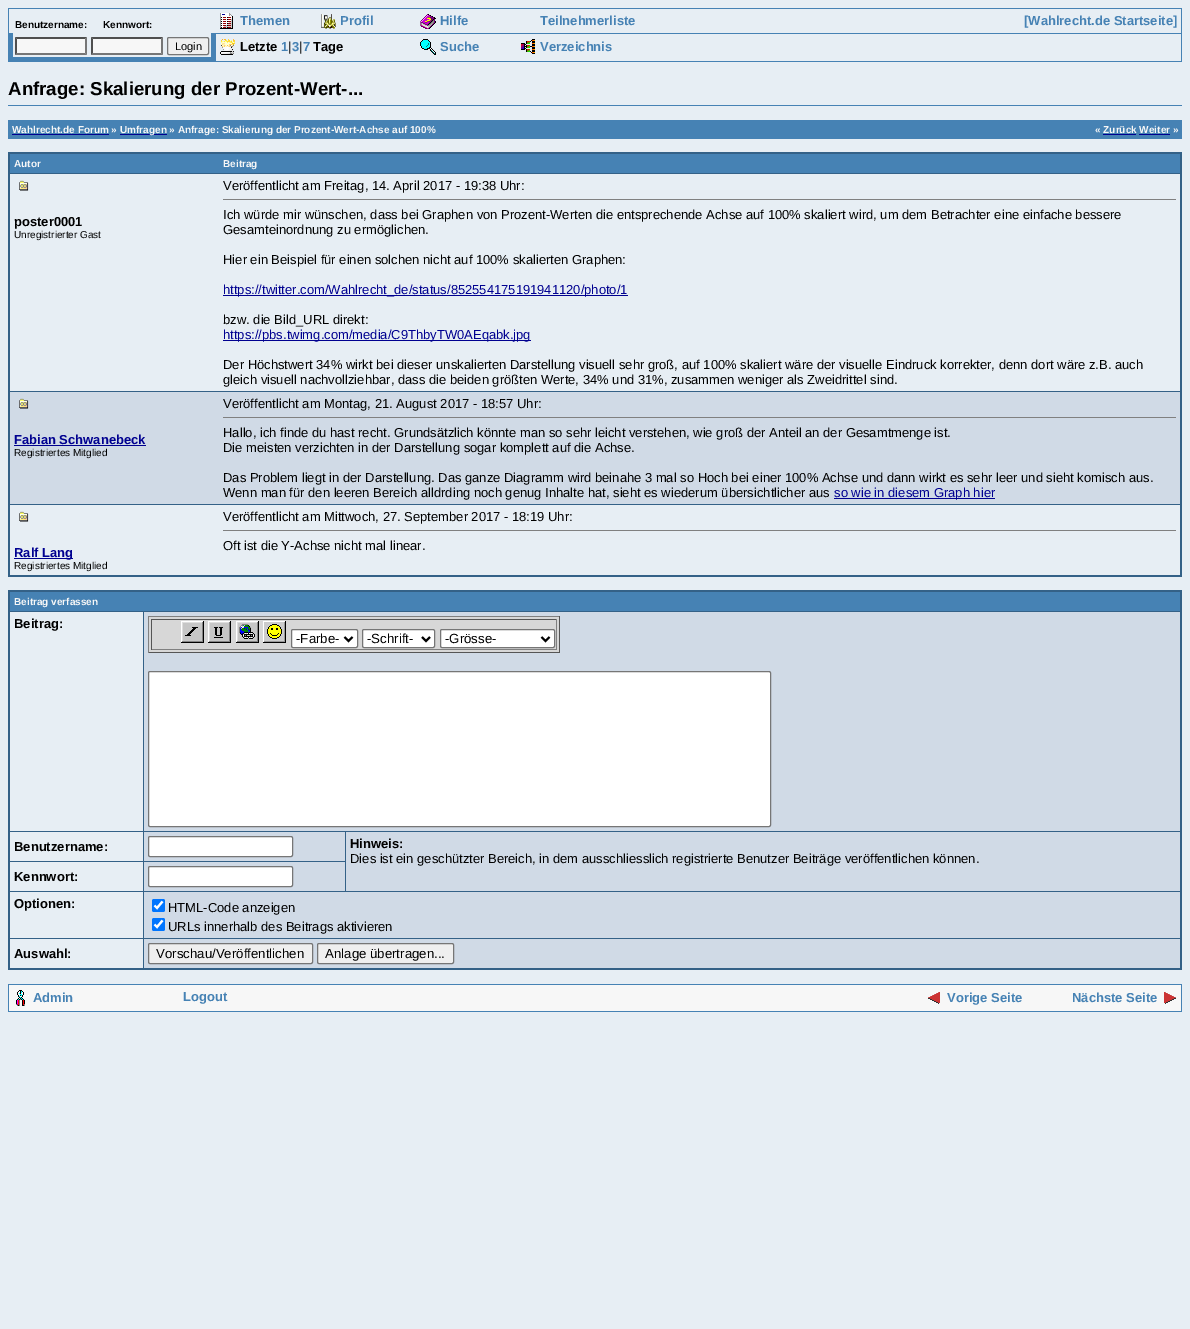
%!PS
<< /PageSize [1190 1329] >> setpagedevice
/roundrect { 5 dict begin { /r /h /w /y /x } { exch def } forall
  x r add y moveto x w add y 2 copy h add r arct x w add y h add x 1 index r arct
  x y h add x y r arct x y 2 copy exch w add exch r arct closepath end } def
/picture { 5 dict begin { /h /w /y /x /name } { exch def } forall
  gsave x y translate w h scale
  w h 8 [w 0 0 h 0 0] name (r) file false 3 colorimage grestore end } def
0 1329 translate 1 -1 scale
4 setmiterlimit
0.906 0.933 0.957 setrgbcolor
0 0 1190 1329 rectfill
0.275 0.51 0.706 setrgbcolor
8 8 1174 54 rectfill
0.906 0.933 0.957 setrgbcolor
9 9 1172 24 rectfill
13 33 198 24 rectfill
/LiberationSans-Bold [10 0 0 -10 0 0] selectfont
0 setgray
15 28 moveto (Benutzername:) show
103 28 moveto (Kennwort:) show
0.969 setgray
15 37 72 18 rectfill
0.31 setgray
newpath 15 37 moveto 87 37 lineto 85 39 lineto 17 39 lineto closepath fill
0.463 setgray
newpath 87 37 moveto 87 55 lineto 85 53 lineto 85 39 lineto closepath fill
newpath 87 55 moveto 15 55 lineto 17 53 lineto 85 53 lineto closepath fill
0.31 setgray
newpath 15 55 moveto 15 37 lineto 17 39 lineto 17 53 lineto closepath fill
0.969 setgray
91 37 72 18 rectfill
0.31 setgray
newpath 91 37 moveto 163 37 lineto 161 39 lineto 93 39 lineto closepath fill
0.463 setgray
newpath 163 37 moveto 163 55 lineto 161 53 lineto 161 39 lineto closepath fill
newpath 163 55 moveto 91 55 lineto 93 53 lineto 161 53 lineto closepath fill
0.31 setgray
newpath 91 55 moveto 91 37 lineto 93 39 lineto 93 53 lineto closepath fill
0.937 setgray
167.5 37.5 41 17 1.5 roundrect gsave fill grestore
0.463 setgray
stroke
/LiberationSans-Regular [11 0 0 -11 0 0] selectfont
0 setgray
175 50 moveto (Login) show
(img1.rgb) 220 13 13 16 picture
/LiberationSans-Bold [13 0 0 -13 0 0] selectfont
0.275 0.51 0.706 setrgbcolor
240 25 moveto (Themen) show
(img2.rgb) 321 14 15 15 picture
340 25 moveto (Profil) show
(img3.rgb) 420 14 16 15 picture
440 25 moveto (Hilfe) show
540 25 moveto (Teilnehmerliste) show
1024 25 moveto ([Wahlrecht.de Startseite]) show
0.906 0.933 0.957 setrgbcolor
216 34 965 27 rectfill
(img4.rgb) 220 39 15 16 picture
0.275 0.51 0.706 setrgbcolor
281 51 moveto (1 3 7) show
0 setgray
240 51 moveto (Letzte) show
/LiberationSans-Regular [13 0 0 -13 0 0] selectfont
288 51 moveto (|) show
299 51 moveto (|) show
/LiberationSans-Bold [13 0 0 -13 0 0] selectfont
313 51 moveto (Tage) show
(img5.rgb) 420 39 16 16 picture
0.275 0.51 0.706 setrgbcolor
440 51 moveto (Suche) show
(img6.rgb) 521 39 14 15 picture
540 51 moveto (Verzeichnis) show
8 105 1174 1 rectfill
/LiberationSans-Bold [18.7 0 0 -18.7 0 0] selectfont
0 setgray
8 95 moveto (Anfrage: Skalierung der Prozent-Wert-...) show
0.275 0.51 0.706 setrgbcolor
8 120 1174 19 rectfill
/LiberationSans-Bold [10 0 0 -10 0 0] selectfont
0.969 setgray
12 133 moveto (Wahlrecht.de Forum ») show
0 0 0.565 setrgbcolor
12 134 97 1 rectfill
120 134 47 1 rectfill
0.969 setgray
120 133 moveto (Umfragen » Anfrage: Skalierung der Prozent-Wert-Achse auf 100%) show
1095 133 moveto (« Zurück Weiter ») show
0 0 0.565 setrgbcolor
1103 134 33 1 rectfill
1139 134 31 1 rectfill
0.204 0.38 0.529 setrgbcolor
8 152 1174 425 rectfill
0.275 0.51 0.706 setrgbcolor
10 154 1170 19 rectfill
0.969 setgray
14 167 moveto (Autor) show
223 167 moveto (Beitrag) show
0.906 0.933 0.957 setrgbcolor
10 174 1170 217 rectfill
(img7.rgb) 19 180 10 11 picture
/LiberationSans-Bold [13 0 0 -13 0 0] selectfont
0 setgray
14 226 moveto (poster0001) show
/LiberationSans-Regular [10 0 0 -10 0 0] selectfont
14 238 moveto (Unregistrierter Gast) show
/LiberationSans-Regular [13 0 0 -13 0 0] selectfont
223 190 moveto (Veröffentlicht am Freitag, 14. April 2017 - 19:38 Uhr:) show
0.502 setgray
223 199 953 1 rectfill
0 setgray
223 219 moveto (Ich würde mir wünschen, dass bei Graphen von Prozent-Werten die entsprechende Achse auf 100% skaliert wird, um dem Betrachter eine einfache bessere) show
223 234 moveto (Gesamteinordnung zu ermöglichen.) show
223 264 moveto (Hier ein Beispiel für einen solchen nicht auf 100% skalierten Graphen:) show
0 0 0.565 setrgbcolor
223 295 405 1 rectfill
223 294 moveto (https://twitter.com/Wahlrecht_de/status/852554175191941120/photo/1) show
0 setgray
223 324 moveto (bzw. die Bild_URL direkt:) show
0 0 0.565 setrgbcolor
223 340 308 1 rectfill
223 339 moveto (https://pbs.twimg.com/media/C9ThbyTW0AEqabk.jpg) show
0 setgray
223 369 moveto (Der Höchstwert 34% wirkt bei dieser unskalierten Darstellung visuell sehr groß, auf 100% skaliert wäre der visuelle Eindruck korrekter, denn dort wäre z.B. auch) show
223 384 moveto (gleich visuell nachvollziehbar, dass die beiden größten Werte, 34% und 31%, zusammen weniger als Zweidrittel sind.) show
0.816 0.855 0.902 setrgbcolor
10 392 1170 112 rectfill
(img8.rgb) 19 398 10 11 picture
/LiberationSans-Bold [13 0 0 -13 0 0] selectfont
0 0 0.565 setrgbcolor
14 444 moveto (Fabian Schwanebeck) show
14 445 132 1 rectfill
/LiberationSans-Regular [10 0 0 -10 0 0] selectfont
0 setgray
14 456 moveto (Registriertes Mitglied) show
/LiberationSans-Regular [13 0 0 -13 0 0] selectfont
223 408 moveto (Veröffentlicht am Montag, 21. August 2017 - 18:57 Uhr:) show
0.502 setgray
223 417 953 1 rectfill
0 setgray
223 437 moveto (Hallo, ich finde du hast recht. Grundsätzlich könnte man so sehr leicht verstehen, wie groß der Anteil an der Gesamtmenge ist.) show
223 452 moveto (Die meisten verzichten in der Darstellung sogar komplett auf die Achse.) show
223 482 moveto (Das Problem liegt in der Darstellung. Das ganze Diagramm wird beinahe 3 mal so Hoch bei einer 100% Achse und dann wirkt es sehr leer und sieht komisch aus.) show
223 497 moveto (Wenn man für den leeren Bereich alldrding noch genug Inhalte hat, sieht es wiederum übersichtlicher aus) show
0 0 0.565 setrgbcolor
834 498 161 1 rectfill
834 497 moveto (so wie in diesem Graph hier) show
0.906 0.933 0.957 setrgbcolor
10 505 1170 70 rectfill
0 setgray
223 521 moveto (Veröffentlicht am Mittwoch, 27. September 2017 - 18:19 Uhr:) show
0.502 setgray
223 530 953 1 rectfill
0 setgray
223 550 moveto (Oft ist die Y-Achse nicht mal linear.) show
(img7.rgb) 19 511 10 11 picture
0 0 0.565 setrgbcolor
14 558 59 1 rectfill
/LiberationSans-Bold [13 0 0 -13 0 0] selectfont
14 557 moveto (Ralf Lang) show
/LiberationSans-Regular [10 0 0 -10 0 0] selectfont
0 setgray
14 569 moveto (Registriertes Mitglied) show
0.204 0.38 0.529 setrgbcolor
8 590 1174 380 rectfill
0.275 0.51 0.706 setrgbcolor
10 592 1170 19 rectfill
/LiberationSans-Bold [10 0 0 -10 0 0] selectfont
0.969 setgray
14 605 moveto (Beitrag verfassen) show
0.906 0.933 0.957 setrgbcolor
10 612 133 219 rectfill
/LiberationSans-Bold [13 0 0 -13 0 0] selectfont
0 setgray
14 628 moveto (Beitrag:) show
0.816 0.855 0.902 setrgbcolor
144 612 1036 219 rectfill
0.843 setgray
149 617 410 35 rectfill
0.502 setgray
148 616 412 1 rectfill
0.333 setgray
559 616 1 37 rectfill
148 652 412 1 rectfill
0.502 setgray
148 616 1 37 rectfill
0.333 setgray
151 619 406 1 rectfill
0.502 setgray
556 619 1 31 rectfill
151 649 406 1 rectfill
0.333 setgray
151 619 1 31 rectfill
(img9.rgb) 181 621 23 22 picture
(img10.rgb) 208 621 23 22 picture
(img11.rgb) 236 621 23 22 picture
(img12.rgb) 263 621 23 22 picture
1 setgray
291.5 629.5 66 18 1.5 roundrect gsave fill grestore
0.463 setgray
stroke
0 setgray
2 setlinewidth
newpath 344.5 637 moveto 348.5 641 lineto 352.5 637 lineto stroke
/LiberationSans-Regular [13.25 0 0 -13.25 0 0] selectfont
296 643 moveto (-Farbe-) show
1 setgray
362.5 629.5 72 18 1.5 roundrect gsave fill grestore
0.463 setgray
1 setlinewidth
stroke
0 setgray
2 setlinewidth
newpath 422 637 moveto 426 641 lineto 430 637 lineto stroke
367 643 moveto (-Schrift-) show
1 setgray
440.5 629.5 114 18 1.5 roundrect gsave fill grestore
0.463 setgray
1 setlinewidth
stroke
0 setgray
2 setlinewidth
newpath 541.5 637 moveto 545.5 641 lineto 549.5 637 lineto stroke
445 643 moveto (-Grösse-) show
1 setgray
148.5 671.5 622 155 1.5 roundrect gsave fill grestore
0.463 setgray
1 setlinewidth
stroke
0.906 0.933 0.957 setrgbcolor
10 832 133 29 rectfill
/LiberationSans-Bold [13 0 0 -13 0 0] selectfont
0 setgray
14 851 moveto (Benutzername:) show
0.816 0.855 0.902 setrgbcolor
144 832 201 29 rectfill
1 setgray
148.5 836.5 144 20 1.5 roundrect gsave fill grestore
0.463 setgray
stroke
0.816 0.855 0.902 setrgbcolor
346 832 834 59 rectfill
0 setgray
350 848 moveto (Hinweis:) show
/LiberationSans-Regular [13 0 0 -13 0 0] selectfont
350 863 moveto (Dies ist ein geschützter Bereich, in dem ausschliesslich registrierte Benutzer Beiträge veröffentlichen können.) show
0.906 0.933 0.957 setrgbcolor
10 862 133 29 rectfill
/LiberationSans-Bold [13 0 0 -13 0 0] selectfont
0 setgray
14 881 moveto (Kennwort:) show
0.816 0.855 0.902 setrgbcolor
144 862 201 29 rectfill
1 setgray
148.5 866.5 144 20 1.5 roundrect gsave fill grestore
0.463 setgray
stroke
0.906 0.933 0.957 setrgbcolor
10 892 133 46 rectfill
0 setgray
14 908 moveto (Optionen:) show
0.816 0.855 0.902 setrgbcolor
144 892 1036 46 rectfill
0 0.459 1 setrgbcolor
152 899 13 13 2 roundrect fill
1 setgray
2.1 setlinewidth
newpath 154.5 905.5 moveto 157 908 lineto 162.5 901.5 lineto stroke
/LiberationSans-Regular [13 0 0 -13 0 0] selectfont
0 setgray
168 912 moveto (HTML-Code anzeigen) show
0 0.459 1 setrgbcolor
152 918 13 13 2 roundrect fill
1 setgray
newpath 154.5 924.5 moveto 157 927 lineto 162.5 920.5 lineto stroke
0 setgray
168 931 moveto (URLs innerhalb des Beitrags aktivieren) show
0.906 0.933 0.957 setrgbcolor
10 939 133 29 rectfill
/LiberationSans-Bold [13 0 0 -13 0 0] selectfont
0 setgray
14 958 moveto (Auswahl:) show
0.816 0.855 0.902 setrgbcolor
144 939 1036 29 rectfill
0.937 setgray
148.5 943.5 164 20 1.5 roundrect gsave fill grestore
0.463 setgray
1 setlinewidth
stroke
/LiberationSans-Regular [13.25 0 0 -13.25 0 0] selectfont
0 setgray
156 958 moveto (Vorschau/Veröffentlichen) show
0.937 setgray
317.5 943.5 136 20 1.5 roundrect gsave fill grestore
0.463 setgray
stroke
0 setgray
325 958 moveto (Anlage übertragen...) show
0.275 0.51 0.706 setrgbcolor
8 984 1174 28 rectfill
0.969 setgray
9 985 1172 26 rectfill
(img13.rgb) 16 990 13 16 picture
/LiberationSans-Bold [13 0 0 -13 0 0] selectfont
0.275 0.51 0.706 setrgbcolor
33 1002 moveto (Admin) show
183 1001 moveto (Logout) show
(img14.rgb) 928 992 12 12 picture
947 1002 moveto (Vorige Seite) show
1072 1002 moveto (Nächste Seite) show
(img15.rgb) 1164 992 12 12 picture
showpage
